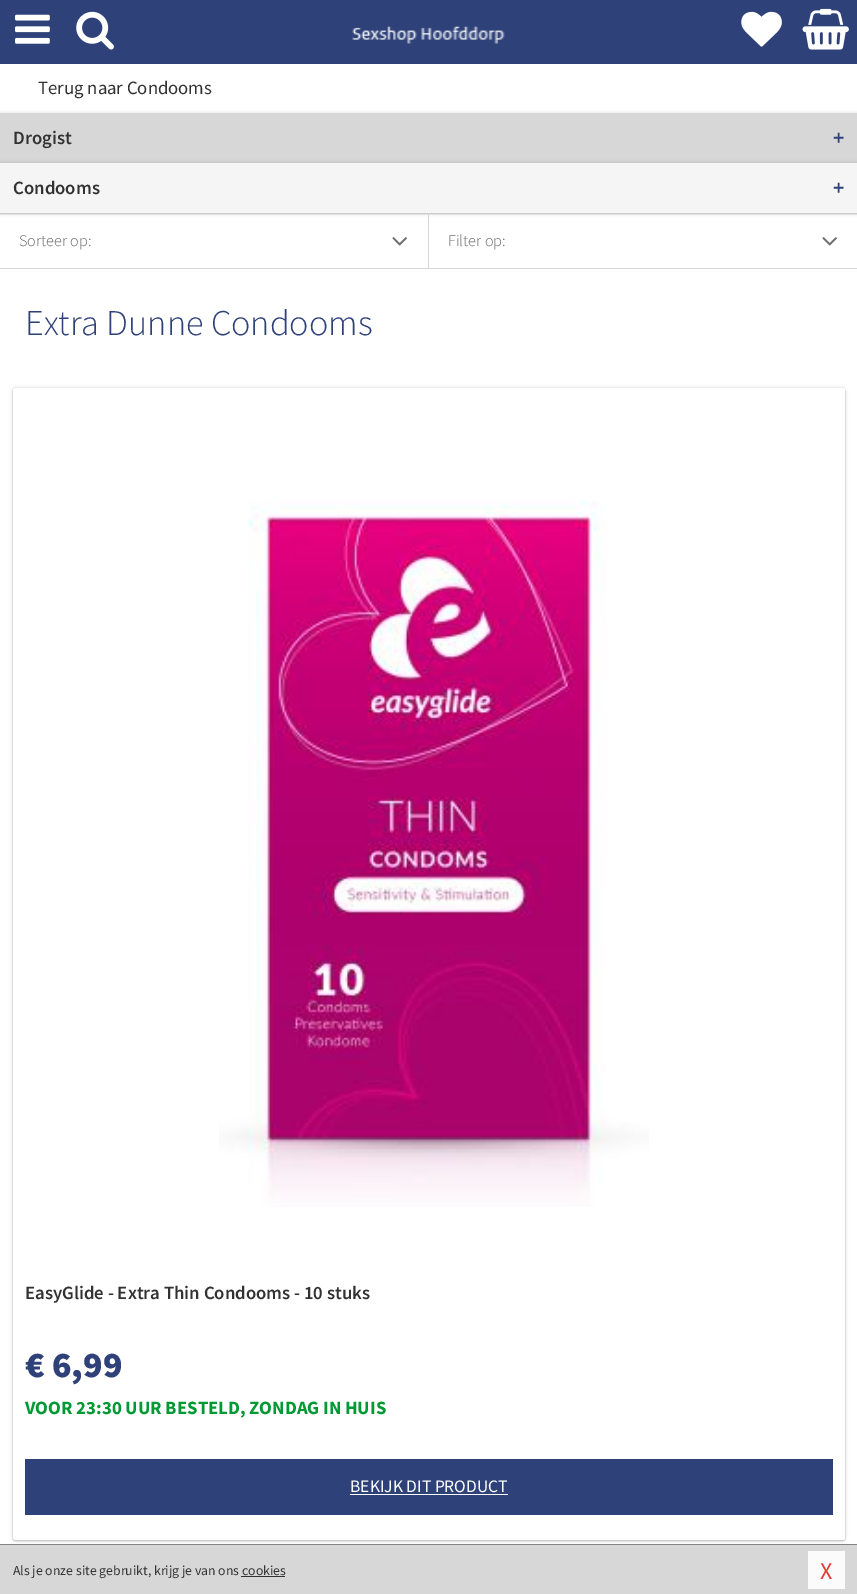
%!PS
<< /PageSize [857 1594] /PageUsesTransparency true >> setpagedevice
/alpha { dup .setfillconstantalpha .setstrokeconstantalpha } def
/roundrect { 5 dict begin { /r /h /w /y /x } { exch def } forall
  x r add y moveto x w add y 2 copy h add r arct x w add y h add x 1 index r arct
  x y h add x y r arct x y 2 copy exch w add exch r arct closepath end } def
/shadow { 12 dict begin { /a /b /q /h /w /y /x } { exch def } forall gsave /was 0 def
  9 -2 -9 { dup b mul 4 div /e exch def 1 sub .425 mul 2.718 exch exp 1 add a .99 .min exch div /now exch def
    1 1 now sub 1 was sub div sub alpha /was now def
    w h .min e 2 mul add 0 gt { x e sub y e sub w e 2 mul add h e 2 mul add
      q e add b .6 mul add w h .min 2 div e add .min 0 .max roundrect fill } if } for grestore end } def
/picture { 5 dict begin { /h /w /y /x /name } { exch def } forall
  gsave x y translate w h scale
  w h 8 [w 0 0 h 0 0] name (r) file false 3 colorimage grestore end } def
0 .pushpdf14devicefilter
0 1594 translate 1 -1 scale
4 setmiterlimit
1 setgray
0 0 857 1594 rectfill
0.18 0.255 0.475 setrgbcolor
0 0 857 64 rectfill
(img1.rgb) 15 14 35 30 picture
(img2.rgb) 76 11 38 39 picture
(img3.rgb) 352 26 153 18 picture
(img4.rgb) 741 11 41 36 picture
(img5.rgb) 802 8 47 42 picture
/SourceSansPro-Regular [18.75 0 0 -18.75 0 0] selectfont
0.196 setgray
38 94 moveto (Terug naar Condooms) show
0 setgray
0 113 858 50 0 2 0.12 shadow
0.843 setgray
0 113 857 50 rectfill
/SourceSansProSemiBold-SemiBold [18.75 0 0 -18.75 0 0] selectfont
0.196 setgray
13 144 moveto (Drogist) show
/SourceSansProSemiBold-SemiBold [22 0 0 -22 0 0] selectfont
0.18 0.255 0.475 setrgbcolor
833 145 moveto (+) show
0 setgray
0 164 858 50 0 1 0.24 shadow
0 163 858 50 0 2 0.12 shadow
0.961 setgray
0 163 857 50 rectfill
/SourceSansProSemiBold-SemiBold [18.75 0 0 -18.75 0 0] selectfont
0.196 setgray
13 194 moveto (Condooms) show
/SourceSansProSemiBold-SemiBold [22 0 0 -22 0 0] selectfont
0.18 0.255 0.475 setrgbcolor
833 195 moveto (+) show
0.843 setgray
0 268 857 1 rectfill
428 213 1 56 rectfill
/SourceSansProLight-Light [16.25 0 0 -16.25 0 0] selectfont
0.427 setgray
19 246 moveto (Sorteer op:) show
(img6.rgb) 392 237 15 9 picture
448 246 moveto (Filter op:) show
(img6.rgb) 822 237 15 9 picture
/SourceSansProLight-Light [36.25 0 0 -36.25 0 0] selectfont
0.18 0.255 0.475 setrgbcolor
25 335 moveto (Extra Dunne Condooms) show
0 setgray
13 389 832 1152 2.5 1 0.24 shadow
13 388 832 1152 2.5 2 0.12 shadow
1 setgray
13 388 832 1152 2.5 roundrect fill
(img7.rgb) 219 500 430 707 picture
/SourceSansProSemiBold-SemiBold [18.75 0 0 -18.75 0 0] selectfont
0.196 setgray
25 1299 moveto (EasyGlide - Extra Thin Condooms - 10 stuks) show
/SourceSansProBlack-Black [36.25 0 0 -36.25 0 0] selectfont
0.18 0.255 0.475 setrgbcolor
25 1377 moveto (€ 6,99) show
/SourceSansPro-Bold [18.75 0 0 -18.75 0 0] selectfont
0 0.6 0.2 setrgbcolor
25 1414 moveto (VOOR 23:30 UUR BESTELD, ZONDAG IN HUIS) show
0.18 0.255 0.475 setrgbcolor
25 1459 808 56 rectfill
/SourceSansPro-Regular [17.5 0 0 -17.5 0 0] selectfont
1 setgray
350 1492 moveto (BEKIJK DIT PRODUCT) show
350 1494 158 1 rectfill
0.518 setgray
-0.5 1544.5 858 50 rectstroke
0.843 setgray
0 1545 857 49 rectfill
/SourceSansPro-Regular [13.75 0 0 -13.75 0 0] selectfont
0.196 setgray
13 1575 moveto (Als je onze site gebruikt, krijg je van ons cookies) show
0.984 setgray
808 1551 37 38 rectfill
/SourceSansPro-Regular [24 0 0 -24 0 0] selectfont
0.898 0.224 0.208 setrgbcolor
820 1579 moveto (X) show
0.196 setgray
241 1576 44 1 rectfill
.poppdf14devicefilter showpage
